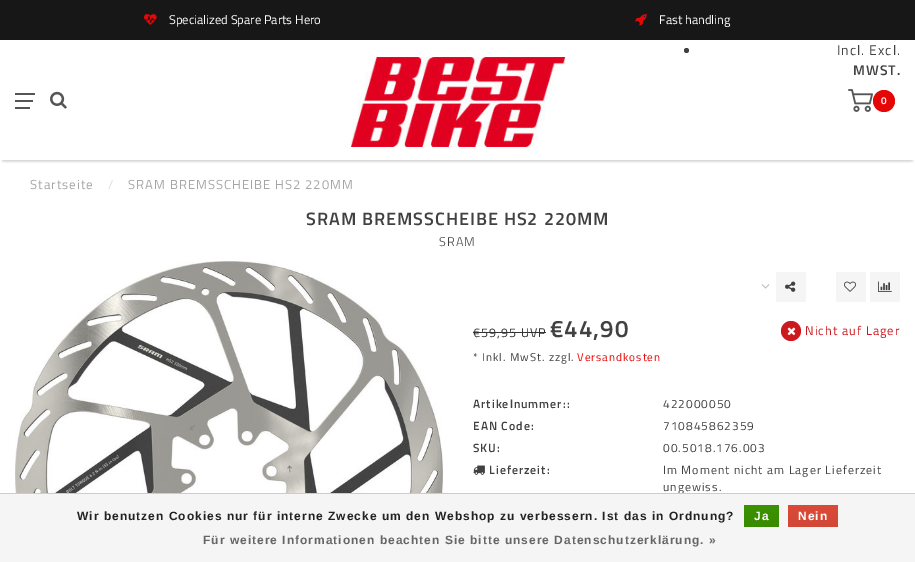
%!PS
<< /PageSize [915 562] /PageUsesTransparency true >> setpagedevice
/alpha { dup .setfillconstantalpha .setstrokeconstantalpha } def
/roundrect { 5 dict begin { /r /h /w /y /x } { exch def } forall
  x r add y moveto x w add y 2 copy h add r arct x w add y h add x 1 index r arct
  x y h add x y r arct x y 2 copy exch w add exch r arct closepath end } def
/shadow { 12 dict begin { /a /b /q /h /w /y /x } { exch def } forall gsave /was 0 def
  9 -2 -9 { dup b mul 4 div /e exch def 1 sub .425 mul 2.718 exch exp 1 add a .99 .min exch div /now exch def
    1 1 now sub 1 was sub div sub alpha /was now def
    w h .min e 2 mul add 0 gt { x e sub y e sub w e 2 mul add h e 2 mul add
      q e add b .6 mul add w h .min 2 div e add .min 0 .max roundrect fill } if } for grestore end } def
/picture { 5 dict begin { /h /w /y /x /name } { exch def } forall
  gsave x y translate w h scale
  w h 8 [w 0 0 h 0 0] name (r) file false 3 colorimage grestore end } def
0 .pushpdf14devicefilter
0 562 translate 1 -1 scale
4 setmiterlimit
1 setgray
0 0 915 562 rectfill
0.09 setgray
0 0 915 40 rectfill
(img1.rgb) 144 14 13 11 picture
/TitilliumWeb-Regular [12.6 0 0 -12.6 0 0] selectfont
1 setgray
169 24 moveto (Specialized Spare Parts Hero) show
(img2.rgb) 635 14 12 12 picture
659 24 moveto (Fast handling) show
gsave
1 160 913 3 rectclip
0 setgray
4 46 907 112 0 2.5 1 shadow
grestore
0.333 setgray
15 93 20 2 rectfill
15 100 18 2 rectfill
15 107 15 2 rectfill
(img3.rgb) 50 91 17 18 picture
(img4.rgb) 350 57 216 90 picture
0.255 setgray
newpath 686.5 50.5 2.5 0 360 arc closepath fill
/TitilliumWeb-Regular [14 0 0 -14 0 0] selectfont
837 55 moveto 1 0 (Incl. Excl.) ashow
/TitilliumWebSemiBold-SemiBold [14 0 0 -14 0 0] selectfont
853 75 moveto 1 0 (MWST.) ashow
(img5.rgb) 848 89 25 23 picture
0.898 0.027 0.027 setrgbcolor
newpath 884 101 11 0 360 arc closepath fill
/TitilliumWebSemiBold-SemiBold [10 0 0 -10 0 0] selectfont
1 setgray
881 104 moveto 1 0 (0) ashow
/TitilliumWeb-Regular [13 0 0 -13 0 0] selectfont
0.647 setgray
30 189 moveto 1 0 (Startseite) ashow
0.867 setgray
108 189 moveto 1 0 (/) ashow
0.647 setgray
128 189 moveto 1 0 (SRAM BREMSSCHEIBE HS2 220MM) ashow
/TitilliumWebSemiBold-SemiBold [18 0 0 -18 0 0] selectfont
0.255 setgray
306 225 moveto 1 0 (SRAM BREMSSCHEIBE HS2 220MM) ashow
/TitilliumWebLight-Light [12.6 0 0 -12.6 0 0] selectfont
439 246 moveto 1 0 (SRAM) ashow
(img6.rgb) 15 261 428 232 picture
(img7.rgb) 761 284 9 5 picture
0.961 setgray
776 272 30 30 rectfill
(img8.rgb) 785 281 11 11 picture
836 272 30 30 rectfill
(img9.rgb) 844 281 12 11 picture
870 272 30 30 rectfill
(img10.rgb) 878 281 14 11 picture
/TitilliumWeb-Regular [12.6 0 0 -12.6 0 0] selectfont
0.2 setgray
473 337 moveto 1 0 (€59,95 UVP) ashow
473 332 73 1 rectfill
/TitilliumWebSemiBold-SemiBold [24 0 0 -24 0 0] selectfont
0.255 setgray
550 337 moveto 1 0 (€44,90) ashow
/TitilliumWeb-Regular [11.25 0 0 -11.25 0 0] selectfont
473 361 moveto 1 0 (* Inkl. MwSt. zzgl.) ashow
0.898 0.027 0.027 setrgbcolor
577 361 moveto 1 0 (Versandkosten) ashow
0.8 0.094 0.118 setrgbcolor
newpath 791 331 10 0 360 arc closepath fill
(img11.rgb) 787 327 9 9 picture
/TitilliumWeb-Regular [12.6 0 0 -12.6 0 0] selectfont
805 335 moveto 1 0 (Nicht auf Lager) ashow
/TitilliumWebSemiBold-SemiBold [11.9 0 0 -11.9 0 0] selectfont
0.255 setgray
473 408 moveto 1 0 (Artikelnummer::) ashow
/TitilliumWeb-Regular [11.9 0 0 -11.9 0 0] selectfont
663 408 moveto 1 0 (422000050) ashow
/TitilliumWebSemiBold-SemiBold [11.9 0 0 -11.9 0 0] selectfont
473 430 moveto 1 0 (EAN Code:) ashow
/TitilliumWeb-Regular [11.9 0 0 -11.9 0 0] selectfont
663 430 moveto 1 0 (710845862359) ashow
/TitilliumWebSemiBold-SemiBold [11.9 0 0 -11.9 0 0] selectfont
473 452 moveto 1 0 (SKU:) ashow
/TitilliumWeb-Regular [11.9 0 0 -11.9 0 0] selectfont
663 452 moveto 1 0 (00.5018.176.003) ashow
(img12.rgb) 473 465 12 10 picture
/TitilliumWebSemiBold-SemiBold [11.9 0 0 -11.9 0 0] selectfont
489 474 moveto 1 0 (Lieferzeit:) ashow
/TitilliumWeb-Regular [11.9 0 0 -11.9 0 0] selectfont
663 474 moveto 1 0 (Im Moment nicht am Lager Lieferzeit) ashow
663 491 moveto 1 0 (ungewiss.) ashow
0.961 setgray
0 494 915 68 rectfill
0.8 setgray
0 493 915 1 rectfill
/LiberationSans-Bold [12 0 0 -12 0 0] selectfont
0.133 setgray
77 520 moveto 1 0 (Wir benutzen Cookies nur für interne Zwecke um den Webshop zu verbessern. Ist das in Ordnung?) ashow
gsave newpath 744 505 moveto 779 505 lineto 779 527 lineto 744 527 lineto closepath clip newpath
<< /ShadingType 2 /ColorSpace /DeviceRGB /Coords [762 505 762 527] /Extend [true true] /Function << /FunctionType 2 /Domain [0 1] /C0 [0.235 0.576 0] /C1 [0.224 0.541 0] /N 1 >> >> shfill grestore
1 setgray
754 520 moveto 1 0 (Ja) ashow
gsave newpath 788 505 moveto 838 505 lineto 838 527 lineto 788 527 lineto closepath clip newpath
<< /ShadingType 2 /ColorSpace /DeviceRGB /Coords [813 505 813 527] /Extend [true true] /Function << /FunctionType 2 /Domain [0 1] /C0 [0.863 0.29 0.22] /C1 [0.82 0.282 0.212] /N 1 >> >> shfill grestore
798 520 moveto 1 0 (Nein) ashow
0.4 setgray
203 544 moveto 1 0 (Für weitere Informationen beachten Sie bitte unsere Datenschutzerklärung. ») ashow
.poppdf14devicefilter showpage
